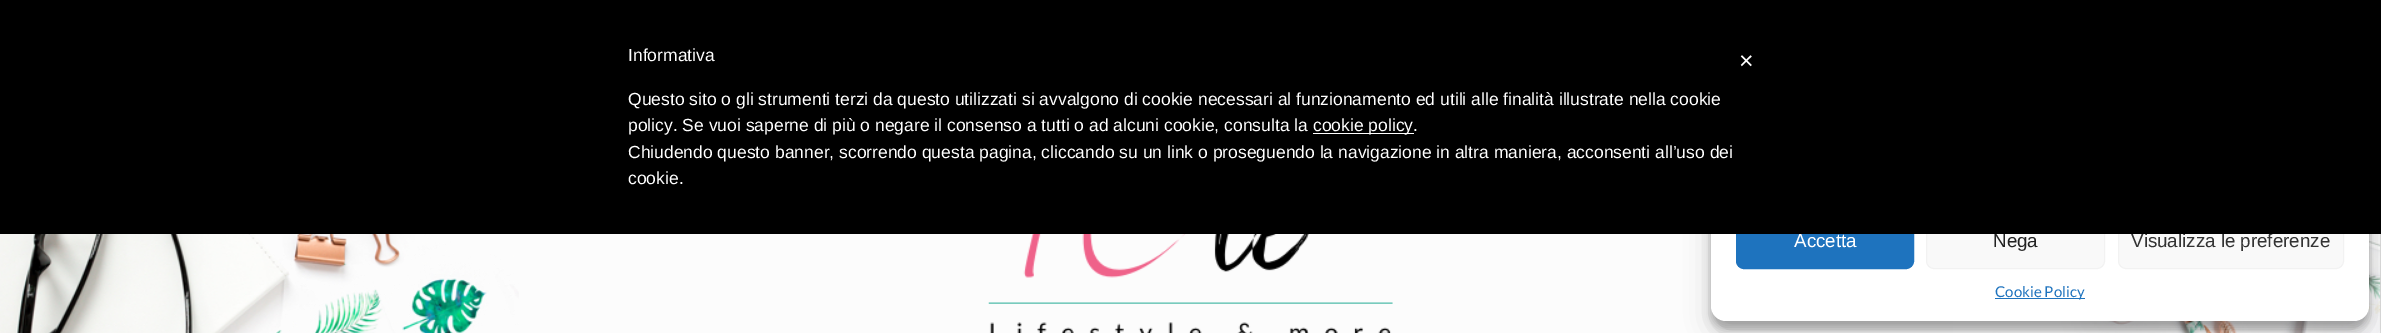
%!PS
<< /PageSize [2381 333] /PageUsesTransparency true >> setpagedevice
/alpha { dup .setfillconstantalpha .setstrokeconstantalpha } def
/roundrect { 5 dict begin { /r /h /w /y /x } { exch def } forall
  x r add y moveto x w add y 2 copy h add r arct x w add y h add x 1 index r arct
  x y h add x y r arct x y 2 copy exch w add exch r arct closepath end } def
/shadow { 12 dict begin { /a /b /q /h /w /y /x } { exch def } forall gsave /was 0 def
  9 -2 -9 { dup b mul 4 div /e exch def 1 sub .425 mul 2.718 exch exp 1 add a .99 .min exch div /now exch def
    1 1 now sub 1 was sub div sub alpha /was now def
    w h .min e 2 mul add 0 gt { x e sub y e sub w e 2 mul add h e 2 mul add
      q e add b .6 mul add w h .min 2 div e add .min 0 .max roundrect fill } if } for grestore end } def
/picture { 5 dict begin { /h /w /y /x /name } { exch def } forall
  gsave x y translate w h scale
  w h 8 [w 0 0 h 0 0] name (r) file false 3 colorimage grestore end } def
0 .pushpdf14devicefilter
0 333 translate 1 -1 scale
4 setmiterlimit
0.988 setgray
0 0 2381 333 rectfill
(img3.rgb) 1945 234 436 99 picture
0 setgray
1711 20 658 309 15 4 0.23 shadow
1711 25 658 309 15 12.5 0.19 shadow
1 setgray
1711 13 658 308 15 roundrect fill
0.118 0.451 0.745 setrgbcolor
1736.5 213.5 177 55 7.5 roundrect gsave fill grestore
stroke
0.976 setgray
1926.5 213.5 178 55 7.5 roundrect gsave fill grestore
0.949 setgray
stroke
0.976 setgray
2118.5 213.5 225 55 7.5 roundrect gsave fill grestore
0.949 setgray
stroke
/LiberationSans-Regular [18.75 0 0 -18.75 0 0] selectfont
0.2 setgray
2131 247 moveto (Visualizza le preferenze) show
0 setgray
0 0 2381 234 rectfill
/LiberationSans-Regular [17.5 0 0 -17.5 0 0] selectfont
1 setgray
628 61 moveto (Informativa) show
628 105 moveto (Questo sito o gli strumenti terzi da questo utilizzati si avvalgono di cookie necessari al funzionamento ed utili alle finalità illustrate nella cookie) show
628 131 moveto (policy. Se vuoi saperne di più o negare il consenso a tutti o ad alcuni cookie, consulta la) show
1313 133 101 1 rectfill
1313 131 moveto (cookie policy.) show
628 158 moveto (Chiudendo questo banner, scorrendo questa pagina, cliccando su un link o proseguendo la navigazione in altra maniera, acconsenti all’uso dei) show
628 184 moveto (cookie.) show
/LiberationSans-Regular [25 0 0 -25 0 0] selectfont
1739 69 moveto (×) show
/LiberationSans-Regular [18.75 0 0 -18.75 0 0] selectfont
1794 247 moveto (Accetta) show
0.133 setgray
1993 247 moveto (Nega) show
0.118 0.451 0.745 setrgbcolor
1995 298 90 1 rectfill
/Lato-Regular [15 0 0 -15 0 0] selectfont
1995 297 moveto (Cookie Policy) show
(img1.rgb) 0 234 519 99 picture
(img2.rgb) 988 234 405 99 picture
.poppdf14devicefilter showpage
